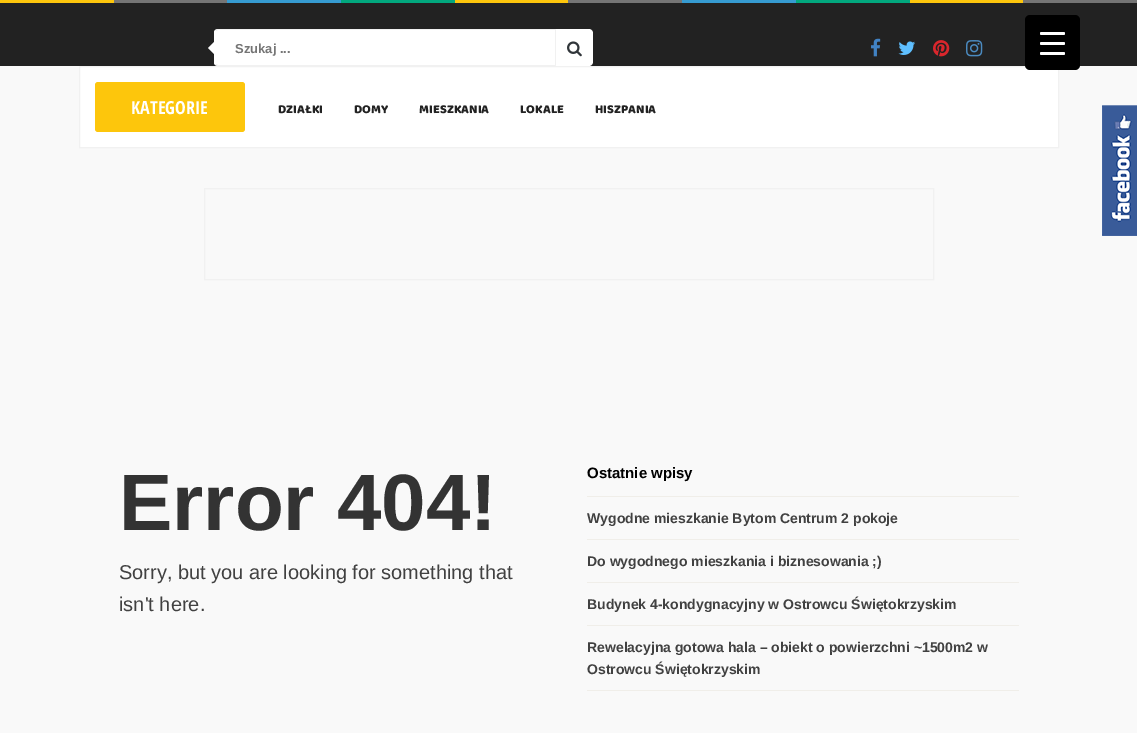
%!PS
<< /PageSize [1137 733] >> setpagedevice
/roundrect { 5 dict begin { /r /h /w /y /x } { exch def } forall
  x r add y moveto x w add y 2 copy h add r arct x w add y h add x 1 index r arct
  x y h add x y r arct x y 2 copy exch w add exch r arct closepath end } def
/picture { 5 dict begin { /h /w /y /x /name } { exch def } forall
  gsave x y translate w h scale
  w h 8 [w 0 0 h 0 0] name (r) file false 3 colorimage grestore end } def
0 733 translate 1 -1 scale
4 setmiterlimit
0.976 setgray
0 0 1137 733 rectfill
0.133 setgray
0 3 1137 63 rectfill
0.459 setgray
114 0 1023 3 rectfill
0.992 0.776 0.047 setrgbcolor
0 0 114 3 rectfill
0.212 0.608 0.82 setrgbcolor
227 0 114 3 rectfill
0.008 0.659 0.494 setrgbcolor
341 0 114 3 rectfill
0.992 0.776 0.047 setrgbcolor
455 0 113 3 rectfill
0.212 0.608 0.82 setrgbcolor
682 0 114 3 rectfill
0.008 0.659 0.494 setrgbcolor
796 0 114 3 rectfill
0.992 0.776 0.047 setrgbcolor
910 0 113 3 rectfill
1 setgray
newpath 218 29 moveto 556 29 lineto 556 66 lineto 218 66 lineto 216 66 214 64 214 62 curveto 214 33 lineto 214 31 216 29 218 29 curveto closepath fill
0.945 setgray
newpath 218 29 moveto 215 30 lineto 216 31 lineto 218 30 lineto 555 30 lineto 556 29 lineto closepath fill
newpath 556 29 moveto 555 30 lineto 555 65 lineto 556 66 lineto closepath fill
newpath 556 66 moveto 555 65 lineto 218 65 lineto 216 64 lineto 215 65 lineto 218 66 lineto closepath fill
1 setgray
newpath 214 33 moveto 214 62 lineto 214 63 214.5 64 215 65 curveto 216 64 lineto 215 64 215 63 215 62 curveto 215 33 lineto 215 32 215 31 216 31 curveto 215 30 lineto 214.5 31 214 32 214 33 curveto closepath fill
newpath 218 38 moveto 218 58 lineto 208 48 lineto closepath fill
/LiberationSans-Bold [13 0 0 -13 0 0] selectfont
0.459 setgray
235 53 moveto (Szukaj ...) show
1 setgray
newpath 556 29 moveto 589 29 lineto 591 29 593 31 593 33 curveto 593 62 lineto 593 64 591 66 589 66 curveto 556 66 lineto closepath fill
(img1.rgb) 567 41 15 16 picture
(img2.rgb) 871 38 10 19 picture
(img3.rgb) 898 41 17 14 picture
(img4.rgb) 933 40 17 17 picture
(img5.rgb) 966 40 17 17 picture
newpath 79.5 66.5 moveto 1058.5 66.5 lineto 1058.5 147.5 lineto 79.5 147.5 lineto closepath gsave fill grestore
0.945 setgray
stroke
0 setgray
1025 15 55 55 5 roundrect fill
1 setgray
1040 42 25 3 1.5 roundrect fill
1040 32 25 3 1.5 roundrect fill
1040 52 25 3 1.5 roundrect fill
0.992 0.776 0.047 setrgbcolor
95 82 150 50 3 roundrect fill
/OpenSansCondensed-Bold [18 0 0 -18 0 0] selectfont
1 setgray
131 114 moveto (KATEGORIE) show
/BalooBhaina-Regular [12.5 0 0 -12.5 0 0] selectfont
0.133 setgray
278 113 moveto (DZIAŁKI) show
354 113 moveto (DOMY) show
419 113 moveto (MIESZKANIA) show
520 113 moveto (LOKALE) show
595 113 moveto (HISZPANIA) show
(img6.rgb) 1102 105 35 131 picture
0.945 setgray
204.5 188.5 729 91 rectstroke
/LiberationSans-Bold [80 0 0 -80 0 0] selectfont
0.2 setgray
119 530 moveto (Error 404!) show
/LiberationSans-Regular [20 0 0 -20 0 0] selectfont
0.255 setgray
119 579 moveto (Sorry, but you are looking for something that) show
119 611 moveto (isn't here.) show
/LiberationSans-Bold [15 0 0 -15 0 0] selectfont
0 setgray
587 478 moveto (Ostatnie wpisy) show
0.941 0.933 0.914 setrgbcolor
587 496 432 1 rectfill
587 539 432 1 rectfill
/LiberationSans-Bold [14 0 0 -14 0 0] selectfont
0.255 setgray
587 523 moveto (Wygodne mieszkanie Bytom Centrum 2 pokoje) show
0.941 0.933 0.914 setrgbcolor
587 582 432 1 rectfill
0.255 setgray
587 566 moveto (Do wygodnego mieszkania i biznesowania ;\)) show
0.941 0.933 0.914 setrgbcolor
587 625 432 1 rectfill
0.255 setgray
587 609 moveto (Budynek 4-kondygnacyjny w Ostrowcu Świętokrzyskim) show
0.941 0.933 0.914 setrgbcolor
587 690 432 1 rectfill
0.255 setgray
587 652 moveto (Rewelacyjna gotowa hala – obiekt o powierzchni ~1500m2 w) show
587 674 moveto (Ostrowcu Świętokrzyskim) show
showpage
